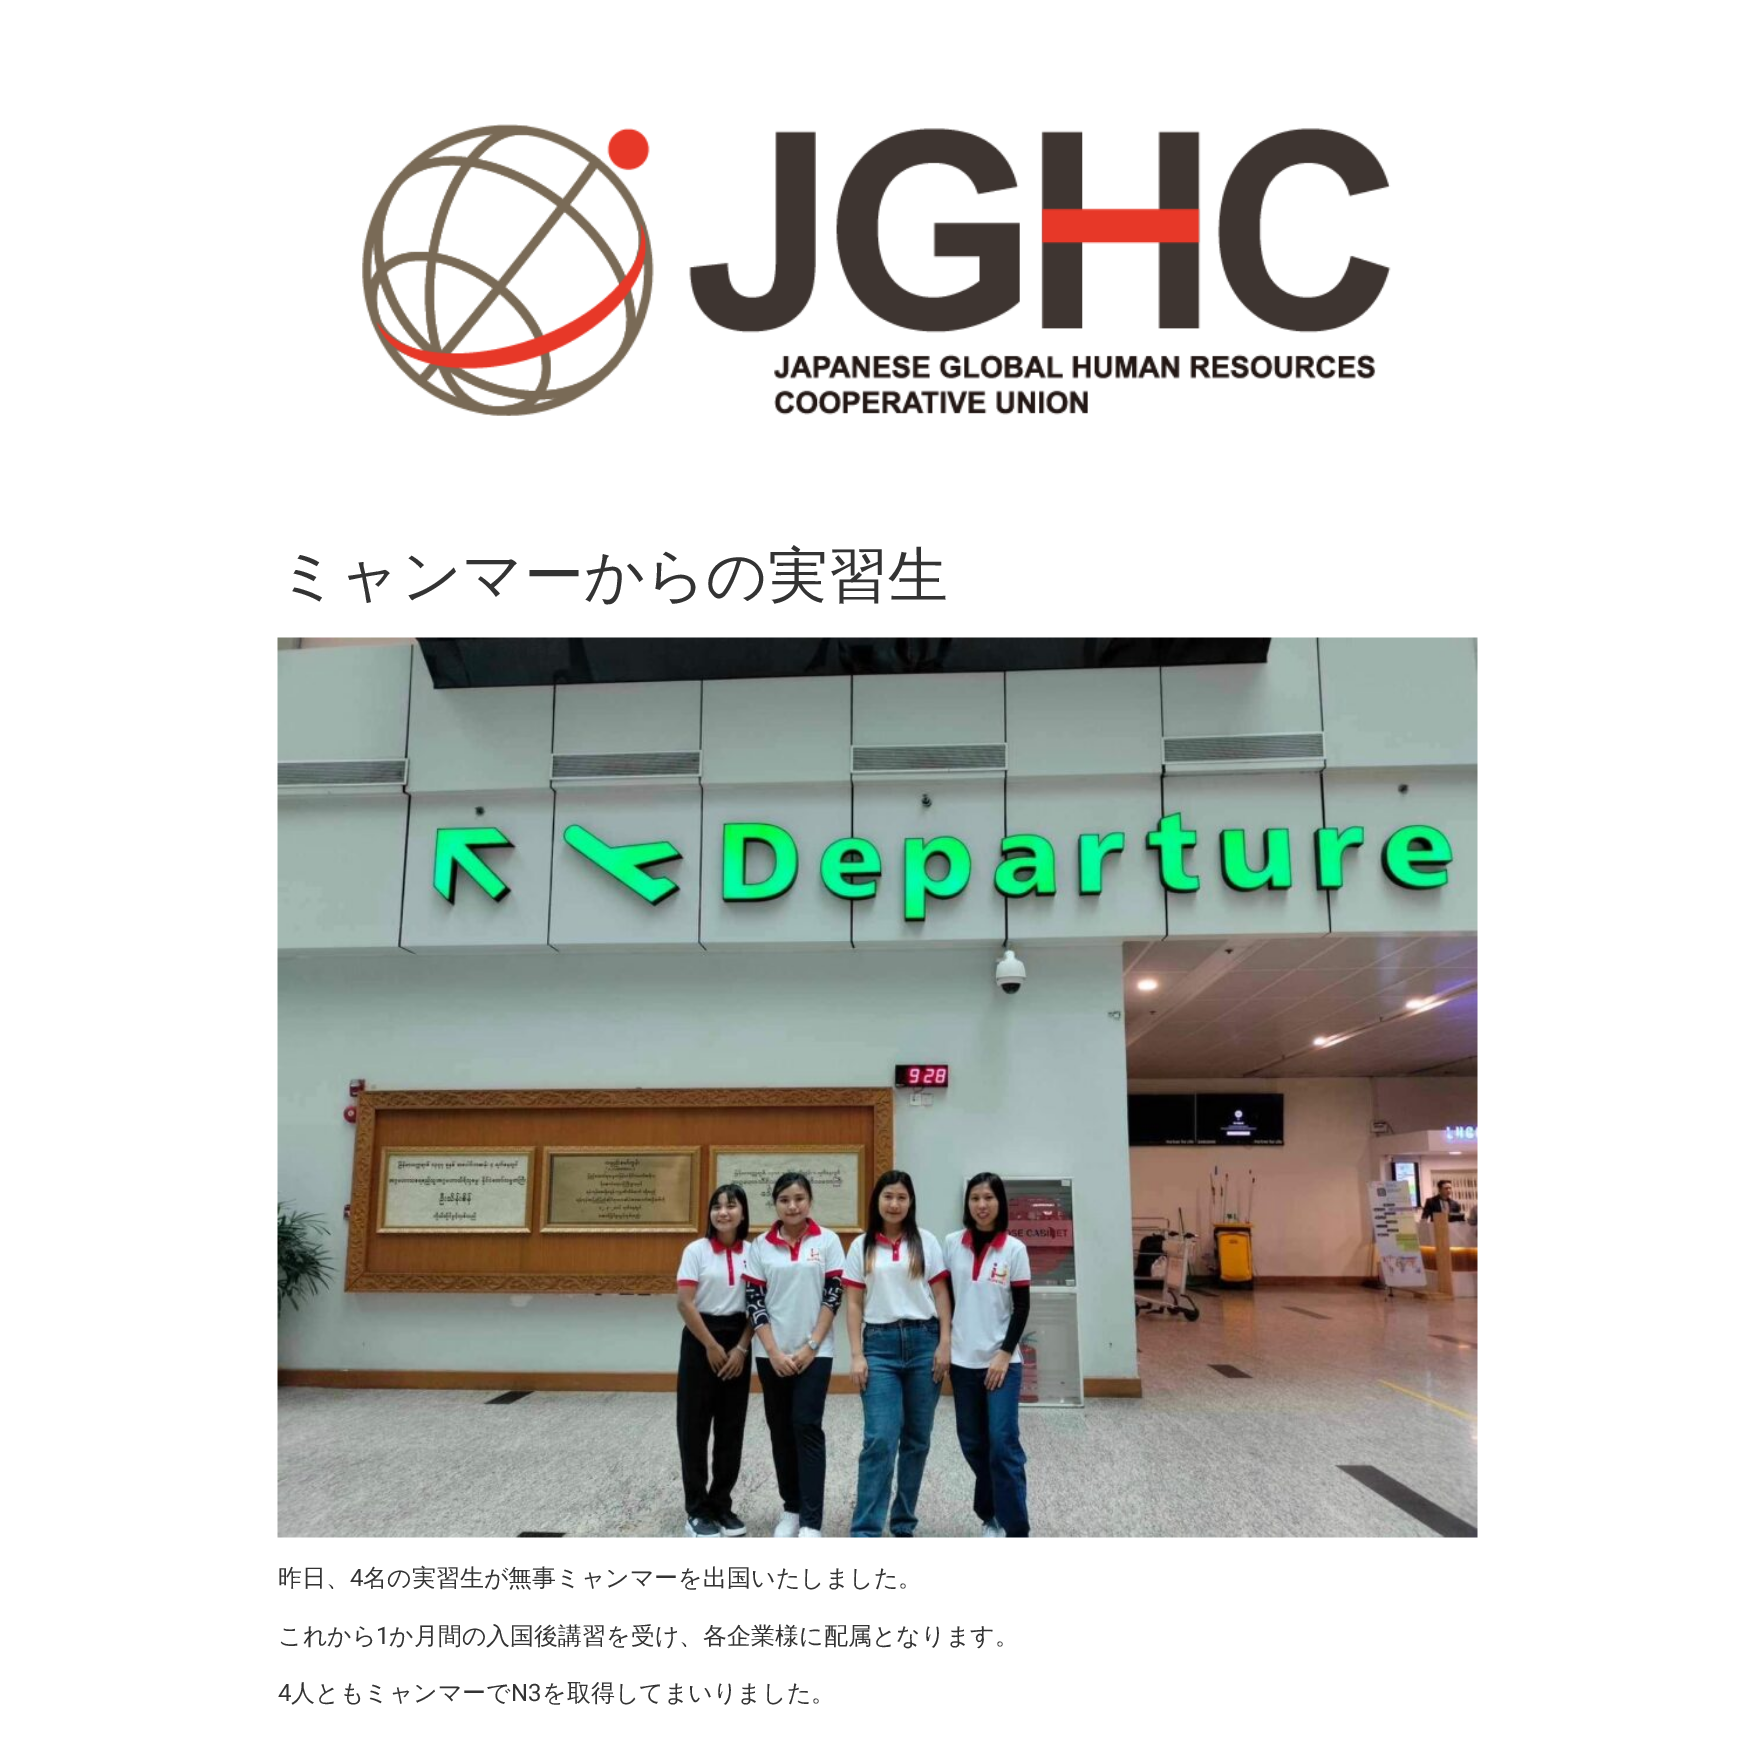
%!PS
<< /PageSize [1754 1738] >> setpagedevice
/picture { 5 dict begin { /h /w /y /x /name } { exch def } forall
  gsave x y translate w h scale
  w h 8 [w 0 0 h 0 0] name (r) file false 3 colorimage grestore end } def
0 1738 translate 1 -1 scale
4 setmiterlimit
1 setgray
0 0 1754 1738 rectfill
(img1.rgb) 362 124 1029 292 picture
/WenQuanYiZenHei-Medium [60 0 0 -60 0 0] selectfont
0.2 setgray
278 596 moveto (ミャンマーからの実習生) show
(img2.rgb) 277 637 1201 901 picture
/WenQuanYiZenHei-Medium [24 0 0 -24 0 0] selectfont
278 1586 moveto (昨日、) show
/Roboto-Regular [24 0 0 -24 0 0] selectfont
350 1586 moveto (4) show
/WenQuanYiZenHei-Medium [24 0 0 -24 0 0] selectfont
363 1586 moveto (名の実習生が無事ミャンマーを出国いたしました。) show
278 1644 moveto (これから) show
/Roboto-Regular [24 0 0 -24 0 0] selectfont
376 1644 moveto (1) show
/WenQuanYiZenHei-Medium [24 0 0 -24 0 0] selectfont
389 1644 moveto (か月間の入国後講習を受け、各企業様に配属となります。) show
/Roboto-Regular [24 0 0 -24 0 0] selectfont
278 1701 moveto (4) show
/WenQuanYiZenHei-Medium [24 0 0 -24 0 0] selectfont
291 1701 moveto (人ともミャンマーで) show
/Roboto-Regular [24 0 0 -24 0 0] selectfont
511 1701 moveto (N3) show
/WenQuanYiZenHei-Medium [24 0 0 -24 0 0] selectfont
542 1701 moveto (を取得してまいりました。) show
showpage
